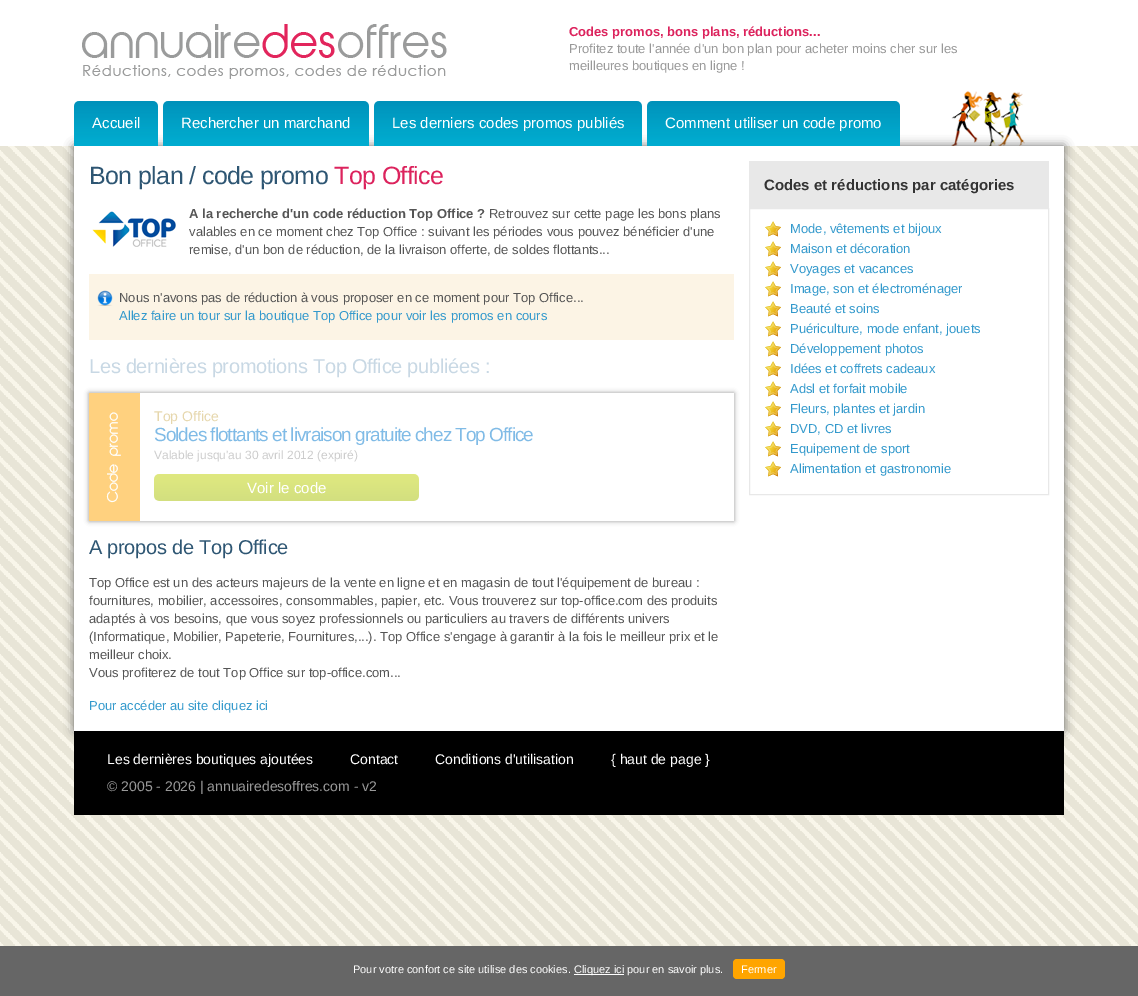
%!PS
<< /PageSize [1138 996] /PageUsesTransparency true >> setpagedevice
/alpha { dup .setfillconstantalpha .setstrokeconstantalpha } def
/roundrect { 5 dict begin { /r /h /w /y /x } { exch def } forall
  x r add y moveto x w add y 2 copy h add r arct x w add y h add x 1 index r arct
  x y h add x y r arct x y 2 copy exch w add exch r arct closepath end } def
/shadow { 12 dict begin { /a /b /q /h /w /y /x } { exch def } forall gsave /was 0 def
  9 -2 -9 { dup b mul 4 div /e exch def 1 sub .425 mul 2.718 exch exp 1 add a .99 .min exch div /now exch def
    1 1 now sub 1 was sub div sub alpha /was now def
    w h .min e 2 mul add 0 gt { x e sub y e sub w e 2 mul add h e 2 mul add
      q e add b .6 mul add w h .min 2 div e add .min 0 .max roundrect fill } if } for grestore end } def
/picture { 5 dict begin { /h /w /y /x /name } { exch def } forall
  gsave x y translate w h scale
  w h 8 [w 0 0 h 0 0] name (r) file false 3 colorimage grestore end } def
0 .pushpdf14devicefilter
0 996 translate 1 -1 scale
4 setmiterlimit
1 setgray
0 0 1138 996 rectfill
(img1.rgb) 0 146 1138 800 picture
(img2.rgb) 951 91 74 55 picture
(img3.rgb) 82 24 365 55 picture
/LiberationSans-Bold [13 0 0 -13 0 0] selectfont
0.863 0.137 0.365 setrgbcolor
569 36 moveto (Codes promos, bons plans, réductions...) show
/LiberationSans-Regular [13 0 0 -13 0 0] selectfont
0.6 setgray
569 53 moveto (Profitez toute l'année d'un bon plan pour acheter moins cher sur les) show
569 70 moveto (meilleures boutiques en ligne !) show
0.4 setgray
74 146 990 585 0 5 1 shadow
(img4.rgb) 74 101 84 45 picture
/LiberationSans-Regular [15 0 0 -15 0 0] selectfont
1 setgray
92 128 moveto (Accueil) show
(img5.rgb) 163 101 206 45 picture
181 128 moveto (Rechercher un marchand) show
(img6.rgb) 374 101 268 45 picture
392 128 moveto (Les derniers codes promos publiés) show
(img7.rgb) 647 101 253 45 picture
665 128 moveto (Comment utiliser un code promo) show
74 146 990 585 rectfill
/LiberationSans-Regular [25 0 0 -25 0 0] selectfont
0.18 0.337 0.451 setrgbcolor
89 184 moveto -0.6 0 (Bon plan / code promo) ashow
0.863 0.137 0.365 setrgbcolor
334 184 moveto -0.6 0 (Top Office) ashow
(img8.rgb) 92 211 84 36 picture
/LiberationSans-Bold [13 0 0 -13 0 0] selectfont
0.333 setgray
189 218 moveto (A la recherche d'un code réduction Top Office ?) show
/LiberationSans-Regular [13 0 0 -13 0 0] selectfont
489 218 moveto (Retrouvez sur cette page les bons plans) show
189 236 moveto (valables en ce moment chez Top Office : suivant les périodes vous pouvez bénéficier d'une) show
189 254 moveto (remise, d'un bon de réduction, de la livraison offerte, de soldes flottants...) show
0.988 0.957 0.898 setrgbcolor
89 274 645 66 rectfill
(img9.rgb) 97 290 16 16 picture
0.333 setgray
119 302 moveto (Nous n'avons pas de réduction à vous proposer en ce moment pour Top Office...) show
0.2 0.6 0.8 setrgbcolor
119 320 moveto (Allez faire un tour sur la boutique Top Office pour voir les promos en cours) show
/LiberationSans-Regular [20 0 0 -20 0 0] selectfont
0.784 0.847 0.894 setrgbcolor
89 373 moveto -0.3 0 (Les dernières promotions Top Office publiées :) ashow
gsave
newpath 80 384 moveto 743 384 lineto 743 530 lineto 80 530 lineto closepath 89 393 moveto 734 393 lineto 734 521 lineto 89 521 lineto closepath eoclip newpath
0.6 setgray
89 393 645 128 0 2.5 1 shadow
grestore
(img10.rgb) 89 393 51 128 picture
/LiberationSans-Regular [14 0 0 -14 0 0] selectfont
0.902 0.843 0.678 setrgbcolor
154 421 moveto (Top Office) show
/LiberationSans-Regular [19 0 0 -19 0 0] selectfont
0.502 0.733 0.902 setrgbcolor
154 441 moveto -1 0 (Soldes flottants et livraison gratuite chez Top Office) ashow
/LiberationSans-Regular [12 0 0 -12 0 0] selectfont
0.8 setgray
154 459 moveto (Valable jusqu'au 30 avril 2012 \(expiré\)) show
(img11.rgb) 154 474 265 27 picture
/LiberationSans-Regular [15 0 0 -15 0 0] selectfont
1 setgray
247 493 moveto (Voir le code) show
/LiberationSans-Regular [20 0 0 -20 0 0] selectfont
0.18 0.337 0.451 setrgbcolor
89 554 moveto -0.3 0 (A propos de Top Office) ashow
/LiberationSans-Regular [13 0 0 -13 0 0] selectfont
0.333 setgray
89 587 moveto (Top Office est un des acteurs majeurs de la vente en ligne et en magasin de tout l'équipement de bureau :) show
89 605 moveto (fournitures, mobilier, accessoires, consommables, papier, etc. Vous trouverez sur top-office.com des produits) show
89 623 moveto (adaptés à vos besoins, que vous soyez professionnels ou particuliers au travers de différents univers) show
89 641 moveto (\(Informatique, Mobilier, Papeterie, Fournitures,...\). Top Office s'engage à garantir à la fois le meilleur prix et le) show
89 659 moveto (meilleur choix.) show
89 677 moveto (Vous profiterez de tout Top Office sur top-office.com...) show
0.2 0.6 0.8 setrgbcolor
89 710 moveto (Pour accéder au site cliquez ici) show
0.91 setgray
749 161 300 47 rectfill
/LiberationSans-Bold [15 0 0 -15 0 0] selectfont
0.2 setgray
764 190 moveto (Codes et réductions par catégories) show
0.91 setgray
749.5 208.5 299 286 rectstroke
(img12.rgb) 765 221 16 16 picture
/LiberationSans-Regular [13 0 0 -13 0 0] selectfont
0.2 0.6 0.8 setrgbcolor
790 233 moveto (Mode, vêtements et bijoux) show
(img12.rgb) 765 241 16 16 picture
790 253 moveto (Maison et décoration) show
(img12.rgb) 765 261 16 16 picture
790 273 moveto (Voyages et vacances) show
(img12.rgb) 765 281 16 16 picture
790 293 moveto (Image, son et électroménager) show
(img12.rgb) 765 301 16 16 picture
790 313 moveto (Beauté et soins) show
(img12.rgb) 765 321 16 16 picture
790 333 moveto (Puériculture, mode enfant, jouets) show
(img12.rgb) 765 341 16 16 picture
790 353 moveto (Développement photos) show
(img12.rgb) 765 361 16 16 picture
790 373 moveto (Idées et coffrets cadeaux) show
(img12.rgb) 765 381 16 16 picture
790 393 moveto (Adsl et forfait mobile) show
(img12.rgb) 765 401 16 16 picture
790 413 moveto (Fleurs, plantes et jardin) show
(img12.rgb) 765 421 16 16 picture
790 433 moveto (DVD, CD et livres) show
(img12.rgb) 765 441 16 16 picture
790 453 moveto (Equipement de sport) show
(img12.rgb) 765 461 16 16 picture
790 473 moveto (Alimentation et gastronomie) show
0 setgray
74 731 990 84 rectfill
/LiberationSans-Regular [14 0 0 -14 0 0] selectfont
1 setgray
107 764 moveto (Les dernières boutiques ajoutées) show
350 764 moveto (Contact) show
435 764 moveto (Conditions d'utilisation) show
611 764 moveto ({ haut de page }) show
0.6 setgray
107 791 moveto (© 2005 - 2026 | annuairedesoffres.com - v2) show
0.4 setgray
0 946 1138 50 rectfill
/LiberationSans-Regular [11 0 0 -11 0 0] selectfont
1 setgray
353 973 moveto (Pour votre confort ce site utilise des cookies.) show
574 974 50 1 rectfill
574 973 moveto (Cliquez ici pour en savoir plus.) show
1 0.647 0 setrgbcolor
733 959 52 20 4 roundrect fill
1 setgray
741 973 moveto (Fermer) show
.poppdf14devicefilter showpage
